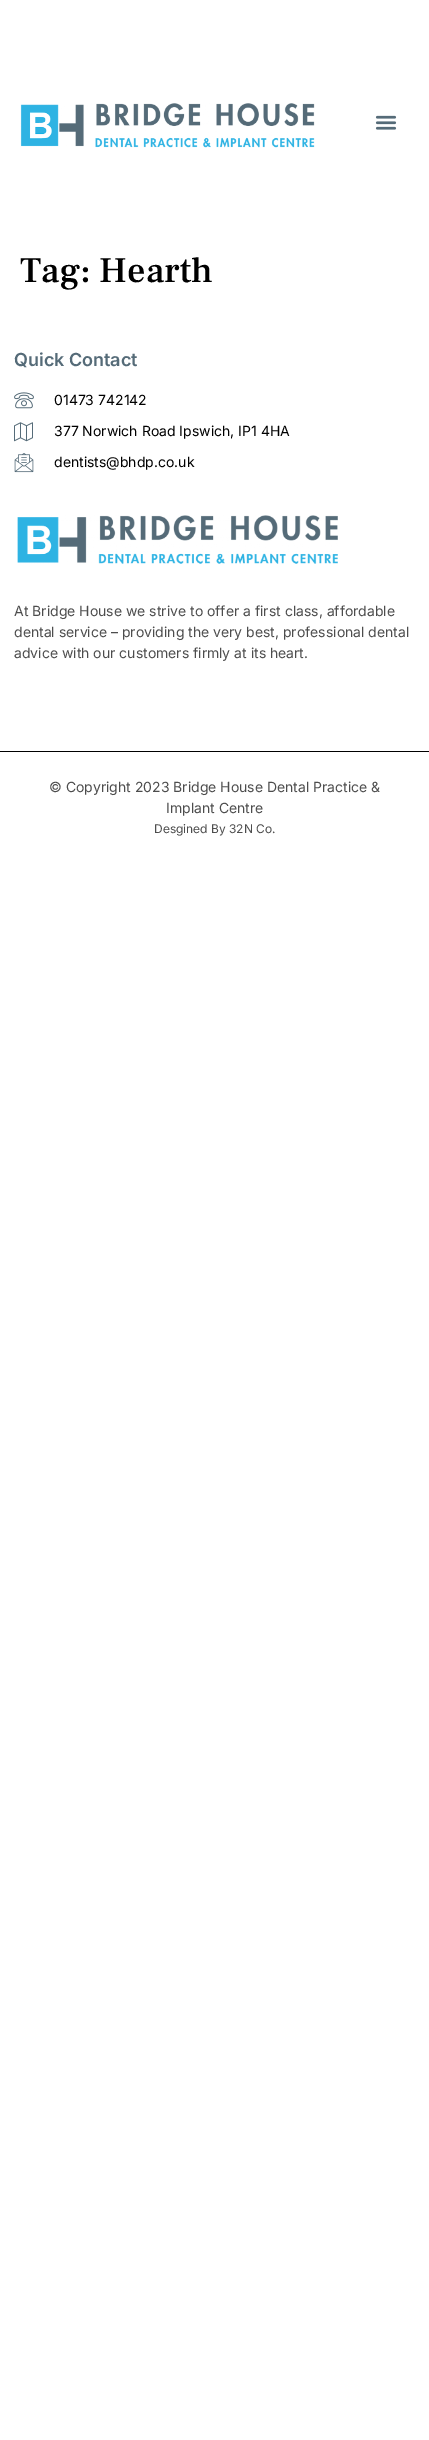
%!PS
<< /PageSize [429 2440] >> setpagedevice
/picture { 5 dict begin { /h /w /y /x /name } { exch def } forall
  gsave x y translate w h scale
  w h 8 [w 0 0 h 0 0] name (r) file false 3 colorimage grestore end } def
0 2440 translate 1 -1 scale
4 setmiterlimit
1 setgray
0 0 429 2440 rectfill
(img1.rgb) 20 103 295 45 picture
(img2.rgb) 375 115 22 15 picture
/FrankRuhlLibre-Medium [36 0 0 -36 0 0] selectfont
0 setgray
20 282 moveto (Tag: Hearth) show
/Inter-SemiBold [18 0 0 -18 0 0] selectfont
0.333 0.42 0.471 setrgbcolor
14 366 moveto (Quick Contact) show
(img3.rgb) 14 392 20 17 picture
/Inter-Regular [14 0 0 -14 0 0] selectfont
0 setgray
54 405 moveto (01473 742142) show
(img4.rgb) 14 422 19 20 picture
54 436 moveto (377 Norwich Road Ipswich, IP1 4HA) show
(img5.rgb) 14 453 20 20 picture
54 467 moveto (dentists@bhdp.co.uk) show
(img6.rgb) 17 515 321 49 picture
0.302 setgray
14 616 moveto (At Bridge House we strive to offer a first class, affordable) show
14 637 moveto (dental service – providing the very best, professional dental) show
14 658 moveto (advice with our customers firmly at its heart.) show
0 setgray
0 751 429 1 rectfill
0.302 setgray
49 792 moveto (© Copyright 2023 Bridge House Dental Practice &) show
166 813 moveto (Implant Centre) show
/Inter-Regular [12 0 0 -12 0 0] selectfont
154 833 moveto (Desgined By 32N Co.) show
showpage
